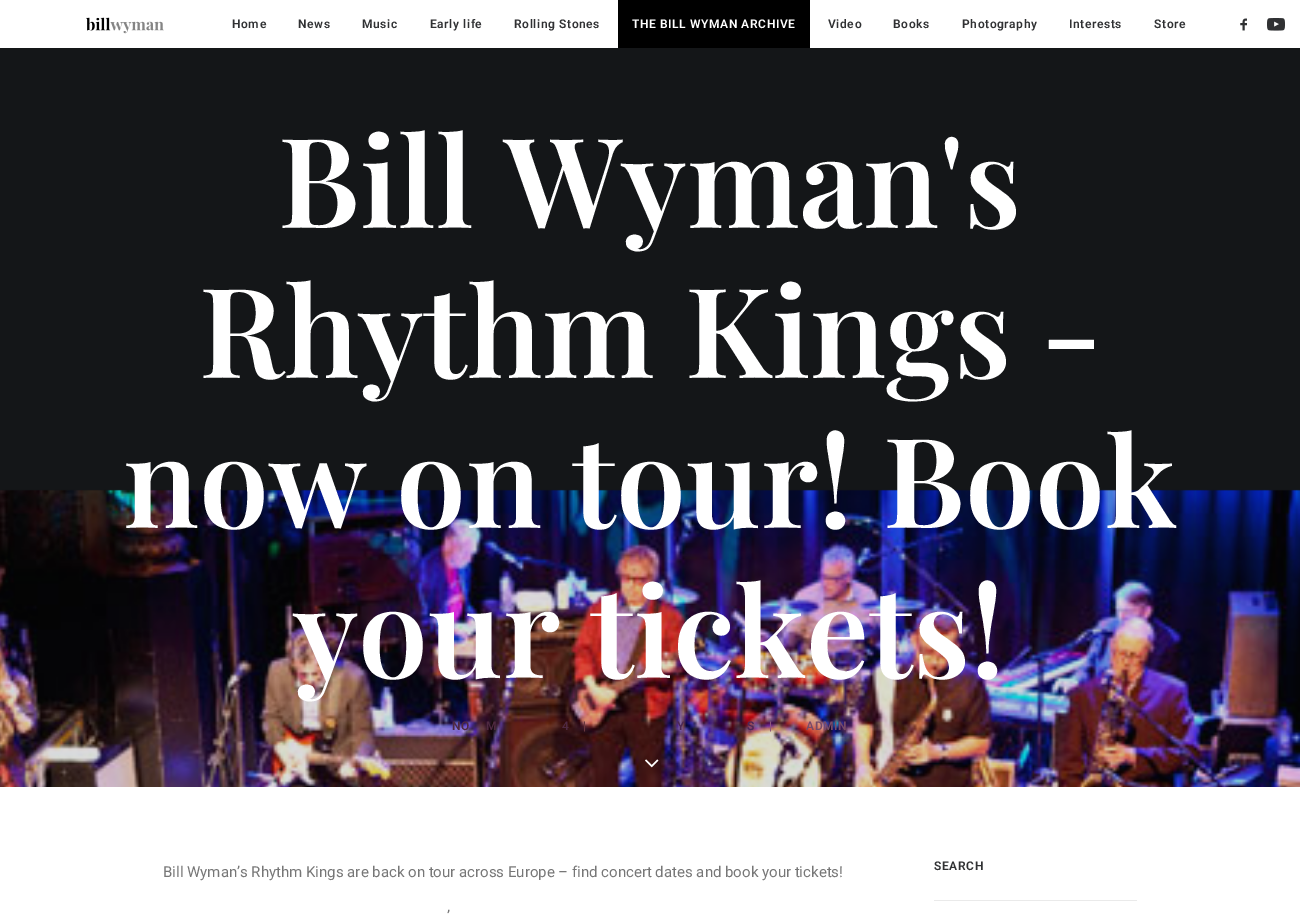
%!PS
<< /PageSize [1300 916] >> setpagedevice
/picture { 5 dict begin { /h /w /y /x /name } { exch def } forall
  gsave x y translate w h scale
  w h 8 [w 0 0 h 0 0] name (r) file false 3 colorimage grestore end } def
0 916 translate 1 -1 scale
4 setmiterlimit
0.078 0.086 0.094 setrgbcolor
0 0 1300 916 rectfill
1 setgray
0 0 1300 48 rectfill
(img1.rgb) 86 17 78 17 picture
/Roboto-SemiBold [12 0 0 -12 0 0] selectfont
0.188 0.192 0.2 setrgbcolor
232 28 moveto 0.6 0 (Home) ashow
298 28 moveto 0.6 0 (News) ashow
362 28 moveto 0.6 0 (Music) ashow
430 28 moveto 0.6 0 (Early life) ashow
514 28 moveto 0.6 0 (Rolling Stones) ashow
0 setgray
618 0 192 48 rectfill
1 setgray
632 28 moveto 0.6 0 (THE BILL WYMAN ARCHIVE) ashow
0.188 0.192 0.2 setrgbcolor
828 28 moveto 0.6 0 (Video) ashow
893 28 moveto 0.6 0 (Books) ashow
962 28 moveto 0.6 0 (Photography) ashow
1069 28 moveto 0.6 0 (Interests) ashow
1154 28 moveto 0.6 0 (Store) ashow
(img2.rgb) 1240 18 7 13 picture
(img3.rgb) 1267 18 18 13 picture
/PlayfairDisplay-SemiBold [125 0 0 -125 0 0] selectfont
1 setgray
278 228 moveto (Bill Wyman's) show
199 378 moveto (Rhythm Kings -) show
(img4.rgb) 0 489 1300 298 picture
123 528 moveto (now on tour! Book) show
294 678 moveto (your tickets!) show
/Roboto-SemiBold [12 0 0 -12 0 0] selectfont
0.31 0.161 0.255 setrgbcolor
452 730 moveto 0.6 0 (NO) ashow
486 730 moveto 0.6 0 (M) ashow
562 730 moveto 0.6 0 (4) ashow
/Roboto-Regular [12 0 0 -12 0 0] selectfont
0.412 0.216 0.239 setrgbcolor
583 730 moveto 0.6 0 (|) ashow
/Roboto-SemiBold [12 0 0 -12 0 0] selectfont
0.302 0.157 0.341 setrgbcolor
677 730 moveto 0.6 0 (Y) ashow
747 730 moveto 0.6 0 (S) ashow
/Roboto-Regular [12 0 0 -12 0 0] selectfont
0.557 0.337 0.49 setrgbcolor
769 730 moveto 0.6 0 (|) ashow
/Roboto-SemiBold [12 0 0 -12 0 0] selectfont
0.467 0.294 0.408 setrgbcolor
806 730 moveto 0.6 0 (ADMIN) ashow
(img5.rgb) 645 759 14 9 picture
1 setgray
0 787 1300 129 rectfill
/Roboto-Regular [15 0 0 -15 0 0] selectfont
0.467 setgray
163 877 moveto (Bill Wyman’s Rhythm Kings are back on tour across Europe – find concert dates and book your tickets!) show
447 921 moveto (’) show
0.918 setgray
934 900 203 1 rectfill
/Roboto-SemiBold [12 0 0 -12 0 0] selectfont
0.188 0.192 0.2 setrgbcolor
934 870 moveto 0.6 0 (SEARCH) ashow
showpage
